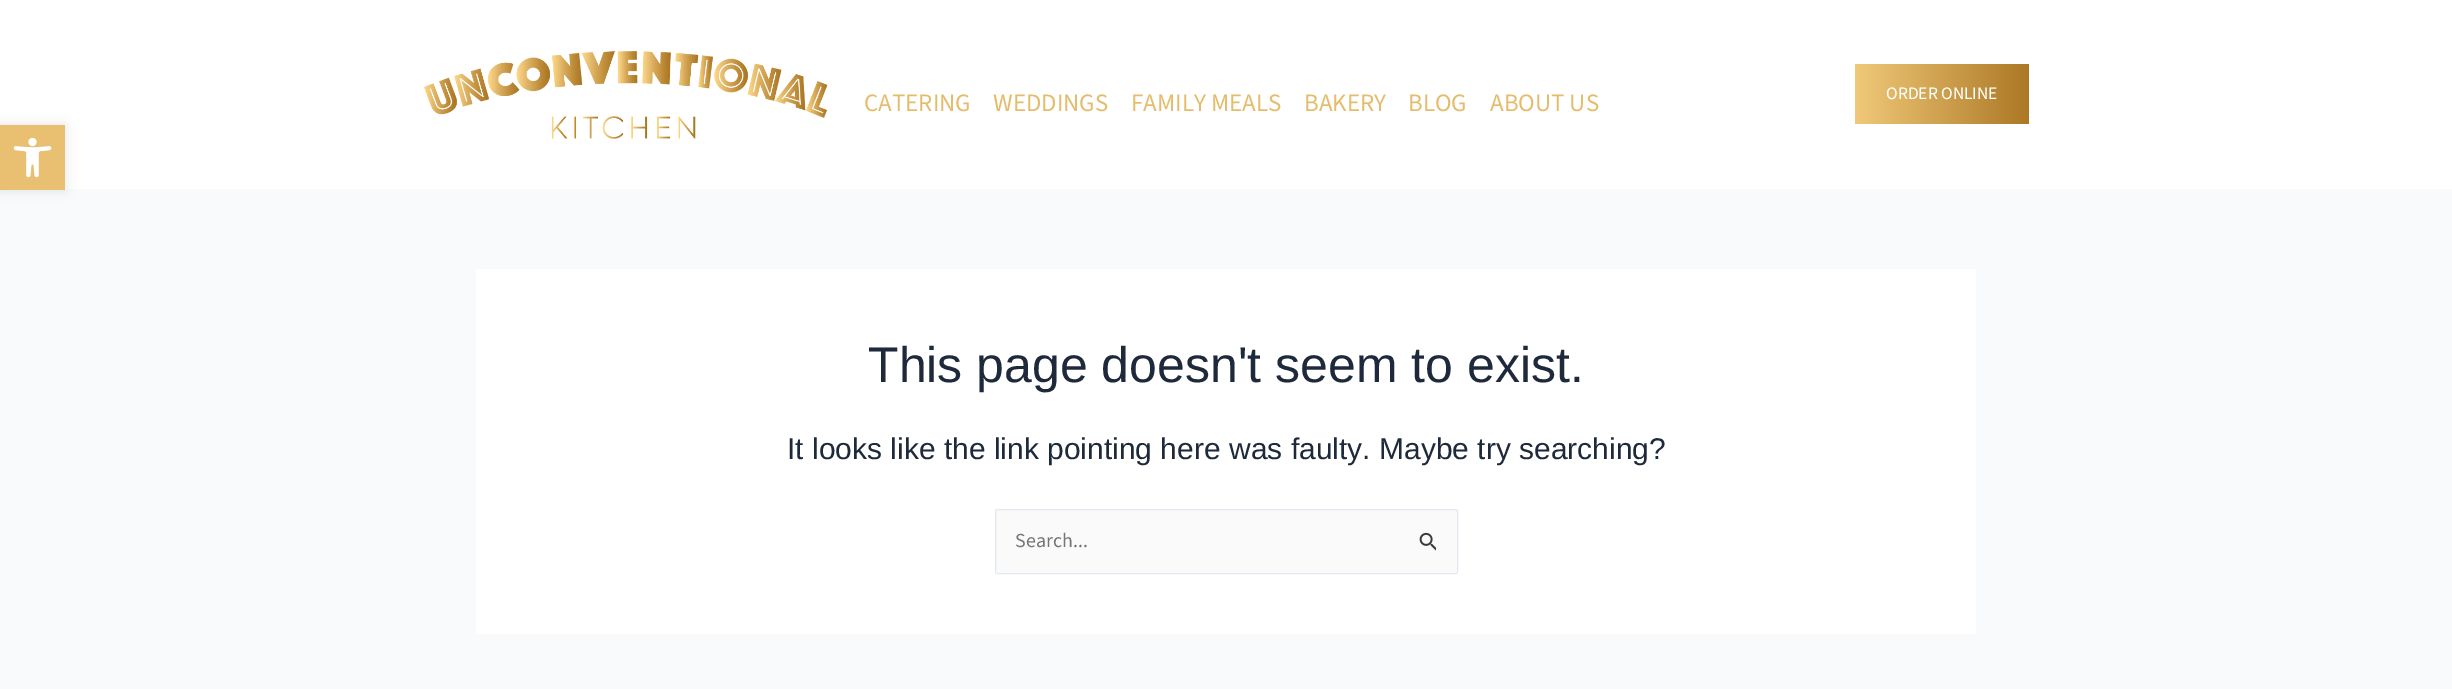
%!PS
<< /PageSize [2452 689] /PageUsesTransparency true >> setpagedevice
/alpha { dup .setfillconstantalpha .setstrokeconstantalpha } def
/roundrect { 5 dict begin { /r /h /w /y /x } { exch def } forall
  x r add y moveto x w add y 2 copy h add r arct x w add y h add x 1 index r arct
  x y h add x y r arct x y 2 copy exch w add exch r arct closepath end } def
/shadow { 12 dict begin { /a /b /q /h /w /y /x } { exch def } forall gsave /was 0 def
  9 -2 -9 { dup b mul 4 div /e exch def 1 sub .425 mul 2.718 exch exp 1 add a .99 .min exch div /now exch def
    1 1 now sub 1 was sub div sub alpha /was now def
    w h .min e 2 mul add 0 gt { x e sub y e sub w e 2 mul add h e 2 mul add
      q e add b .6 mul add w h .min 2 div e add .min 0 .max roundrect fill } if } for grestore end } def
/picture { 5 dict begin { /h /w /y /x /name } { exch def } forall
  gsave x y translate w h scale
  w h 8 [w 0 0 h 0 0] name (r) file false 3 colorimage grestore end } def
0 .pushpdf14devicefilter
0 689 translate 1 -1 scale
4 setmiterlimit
0.976 0.98 0.984 setrgbcolor
0 0 2452 689 rectfill
1 setgray
0 0 2452 189 rectfill
0 setgray
0 125 65 65 0 6 0.1 shadow
0.914 0.749 0.443 setrgbcolor
0 125 65 65 rectfill
(img1.rgb) 13 138 39 40 picture
(img2.rgb) 424 51 404 88 picture
/SourceSans3-ExtraLight [25 0 0 -25 0 0] selectfont
0.898 0.733 0.424 setrgbcolor
864 111 moveto (CATERING) show
993 111 moveto (WEDDINGS) show
1131 111 moveto (FAMILY MEALS) show
1304 111 moveto (BAKERY) show
1408 111 moveto (BLOG) show
1490 111 moveto (ABOUT US) show
gsave newpath 1855 64 moveto 2029 64 lineto 2029 124 lineto 1855 124 lineto closepath clip newpath
<< /ShadingType 2 /ColorSpace /DeviceRGB /Coords [1855 94 2029 94] /Extend [true true] /Function << /FunctionType 2 /Domain [0 1] /C0 [0.941 0.788 0.475] /C1 [0.675 0.471 0.145] /N 1 >> >> shfill grestore
/SourceSans3-ExtraLight [17.5 0 0 -17.5 0 0] selectfont
1 setgray
1886 99 moveto (ORDER ONLINE) show
476 269 1500 365 rectfill
/LiberationSans-Regular [50 0 0 -50 0 0] selectfont
0.118 0.161 0.231 setrgbcolor
868 382 moveto (This page doesn't seem to exist.) show
/LiberationSans-Regular [30 0 0 -30 0 0] selectfont
787 459 moveto (It looks like the link pointing here was faulty. Maybe try searching?) show
0.98 setgray
995.5 509.5 462 64 2 roundrect gsave fill grestore
0.886 0.91 0.941 setrgbcolor
stroke
/SourceSans3-ExtraLight [20 0 0 -20 0 0] selectfont
0.459 setgray
1015 547 moveto (Search...) show
(img3.rgb) 1419 532 17 19 picture
.poppdf14devicefilter showpage
